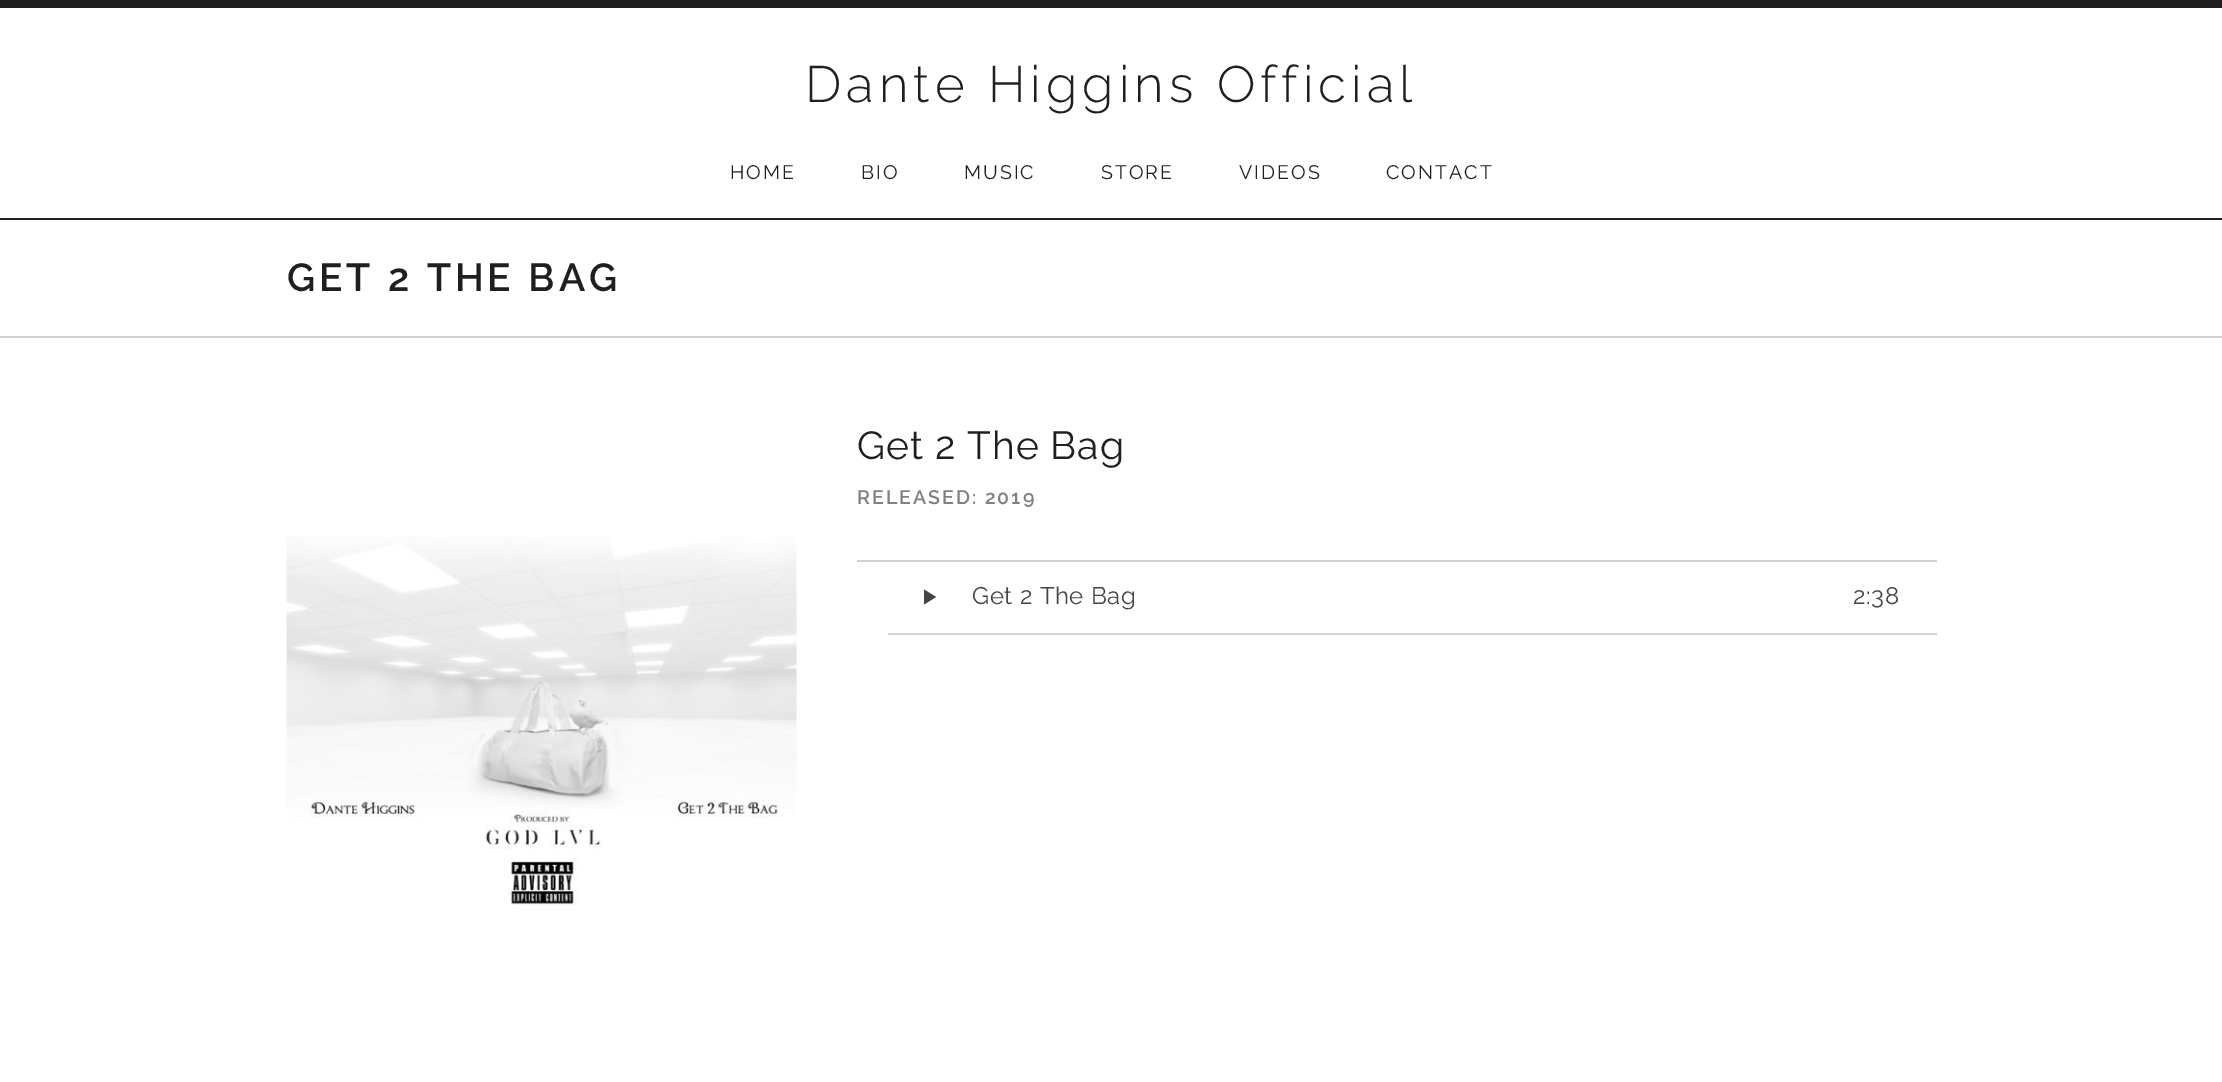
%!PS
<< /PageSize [2222 1082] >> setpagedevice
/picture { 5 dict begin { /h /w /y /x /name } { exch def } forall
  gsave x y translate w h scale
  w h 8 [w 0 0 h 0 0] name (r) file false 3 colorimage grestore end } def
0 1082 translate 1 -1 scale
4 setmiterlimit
1 setgray
0 0 2222 1082 rectfill
0.122 setgray
0 0 2222 8 rectfill
0 218 2222 2 rectfill
/Raleway-Light [51 0 0 -51 0 0] selectfont
805 102 moveto 5.1 0 (Dante Higgins Official) ashow
/Raleway-Regular [19.5 0 0 -19.5 0 0] selectfont
730 179 moveto 2 0 (HOME) ashow
861 179 moveto 2 0 (BIO) ashow
964 179 moveto 2 0 (MUSIC) ashow
1101 179 moveto 2 0 (STORE) ashow
1239 179 moveto 2 0 (VIDEOS) ashow
1386 179 moveto 2 0 (CONTACT) ashow
0.82 setgray
0 336 2222 2 rectfill
/Raleway-SemiBold [39 0 0 -39 0 0] selectfont
0.122 setgray
287 291 moveto 3.9 0 (GET 2 THE BAG) ashow
(img1.rgb) 286 536 511 369 picture
/Raleway-Regular [39 0 0 -39 0 0] selectfont
857 459 moveto 1 0 (Get 2 The Bag) ashow
/Raleway-SemiBold [19.5 0 0 -19.5 0 0] selectfont
0.502 setgray
857 504 moveto 2 0 (RELEASED: 2019) ashow
0.82 setgray
857 560 1080 2 rectfill
888 633 1049 2 rectfill
0.271 setgray
newpath 924 589.5 moveto 936 597 lineto 924 604.5 lineto closepath fill
/Raleway-Regular [24 0 0 -24 0 0] selectfont
972 604 moveto 0.6 0 (Get 2 The Bag) ashow
1853 604 moveto 0.6 0 (2:38) ashow
showpage
